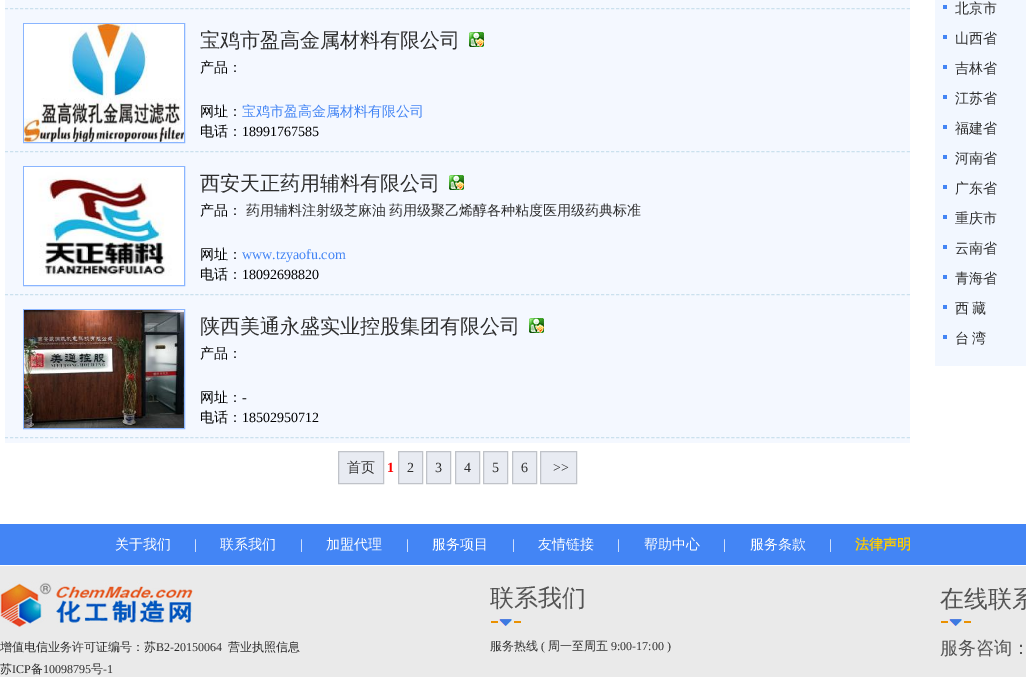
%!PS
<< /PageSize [1026 677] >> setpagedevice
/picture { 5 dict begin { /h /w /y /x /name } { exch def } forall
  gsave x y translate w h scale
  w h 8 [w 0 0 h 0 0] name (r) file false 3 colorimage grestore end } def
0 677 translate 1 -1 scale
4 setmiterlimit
1 setgray
0 0 1026 677 rectfill
0.957 0.973 1 setrgbcolor
5 0 905 443 rectfill
0.796 0.882 0.933 setrgbcolor
[3 2.01] 0 setdash
newpath 5 8.5 moveto 910 8.5 lineto stroke
newpath 5 151.5 moveto 910 151.5 lineto stroke
0.541 0.71 1 setrgbcolor
[] 0 setdash
23.5 23.5 161 119 rectstroke
(img1.rgb) 24 24 160 118 picture
/WenQuanYiZenHei-Medium [20 0 0 -20 0 0] selectfont
0.18 setgray
200 47 moveto (宝鸡市盈高金属材料有限公司) show
(img2.rgb) 469 32 15 15 picture
/WenQuanYiZenHei-Medium [14 0 0 -14 0 0] selectfont
0 setgray
200 72 moveto (产品：) show
200 116 moveto (网址：) show
0.263 0.522 0.961 setrgbcolor
242 116 moveto (宝鸡市盈高金属材料有限公司) show
0 setgray
200 136 moveto (电话：) show
/LiberationSerif-Regular [14 0 0 -14 0 0] selectfont
242 136 moveto (18991767585) show
0.796 0.882 0.933 setrgbcolor
[3 2.01] 0 setdash
newpath 5 294.5 moveto 910 294.5 lineto stroke
0.541 0.71 1 setrgbcolor
[] 0 setdash
23.5 166.5 161 119 rectstroke
(img3.rgb) 24 167 160 118 picture
/WenQuanYiZenHei-Medium [20 0 0 -20 0 0] selectfont
0.18 setgray
200 190 moveto (西安天正药用辅料有限公司) show
(img2.rgb) 449 175 15 15 picture
/WenQuanYiZenHei-Medium [14 0 0 -14 0 0] selectfont
0 setgray
200 215 moveto (产品：) show
0.18 setgray
246 215 moveto (药用辅料注射级芝麻油) show
389 215 moveto (药用级聚乙烯醇各种粘度医用级药典标准) show
0 setgray
200 259 moveto (网址：) show
/LiberationSerif-Regular [14 0 0 -14 0 0] selectfont
0.263 0.522 0.961 setrgbcolor
242 259 moveto (www.tzyaofu.com) show
/WenQuanYiZenHei-Medium [14 0 0 -14 0 0] selectfont
0 setgray
200 279 moveto (电话：) show
/LiberationSerif-Regular [14 0 0 -14 0 0] selectfont
242 279 moveto (18092698820) show
0.796 0.882 0.933 setrgbcolor
[3 2.01] 0 setdash
newpath 5 437.5 moveto 910 437.5 lineto stroke
0.541 0.71 1 setrgbcolor
[] 0 setdash
23.5 309.5 161 119 rectstroke
(img4.rgb) 24 310 160 118 picture
/WenQuanYiZenHei-Medium [20 0 0 -20 0 0] selectfont
0.18 setgray
200 333 moveto (陕西美通永盛实业控股集团有限公司) show
(img2.rgb) 529 318 15 15 picture
/WenQuanYiZenHei-Medium [14 0 0 -14 0 0] selectfont
0 setgray
200 358 moveto (产品：) show
200 402 moveto (网址：) show
/LiberationSerif-Regular [14 0 0 -14 0 0] selectfont
242 402 moveto (-) show
/WenQuanYiZenHei-Medium [14 0 0 -14 0 0] selectfont
200 422 moveto (电话：) show
/LiberationSerif-Regular [14 0 0 -14 0 0] selectfont
242 422 moveto (18502950712) show
0.91 0.922 0.949 setrgbcolor
newpath 338.5 451.5 moveto 383.5 451.5 lineto 383.5 483.5 lineto 338.5 483.5 lineto closepath gsave fill grestore
0.753 0.765 0.788 setrgbcolor
stroke
/WenQuanYiZenHei-Medium [14 0 0 -14 0 0] selectfont
0.18 setgray
347 472 moveto (首页) show
/LiberationSerif-Bold [14 0 0 -14 0 0] selectfont
1 0 0 setrgbcolor
387 472 moveto (1) show
0.91 0.922 0.949 setrgbcolor
newpath 398.5 451.5 moveto 422.5 451.5 lineto 422.5 483.5 lineto 398.5 483.5 lineto closepath gsave fill grestore
0.753 0.765 0.788 setrgbcolor
stroke
/LiberationSerif-Regular [14 0 0 -14 0 0] selectfont
0.18 setgray
407 472 moveto (2) show
0.91 0.922 0.949 setrgbcolor
newpath 426.5 451.5 moveto 450.5 451.5 lineto 450.5 483.5 lineto 426.5 483.5 lineto closepath gsave fill grestore
0.753 0.765 0.788 setrgbcolor
stroke
0.18 setgray
435 472 moveto (3) show
0.91 0.922 0.949 setrgbcolor
newpath 455.5 451.5 moveto 479.5 451.5 lineto 479.5 483.5 lineto 455.5 483.5 lineto closepath gsave fill grestore
0.753 0.765 0.788 setrgbcolor
stroke
0.18 setgray
464 472 moveto (4) show
0.91 0.922 0.949 setrgbcolor
newpath 483.5 451.5 moveto 507.5 451.5 lineto 507.5 483.5 lineto 483.5 483.5 lineto closepath gsave fill grestore
0.753 0.765 0.788 setrgbcolor
stroke
0.18 setgray
492 472 moveto (5) show
0.91 0.922 0.949 setrgbcolor
newpath 512.5 451.5 moveto 536.5 451.5 lineto 536.5 483.5 lineto 512.5 483.5 lineto closepath gsave fill grestore
0.753 0.765 0.788 setrgbcolor
stroke
0.18 setgray
521 472 moveto (6) show
0.91 0.922 0.949 setrgbcolor
newpath 540.5 451.5 moveto 576.5 451.5 lineto 576.5 483.5 lineto 540.5 483.5 lineto closepath gsave fill grestore
0.753 0.765 0.788 setrgbcolor
stroke
0.18 setgray
553 472 moveto (>>) show
0.949 0.969 1 setrgbcolor
935 0 91 366 rectfill
0.263 0.522 0.961 setrgbcolor
943 5 4 4 rectfill
/WenQuanYiZenHei-Medium [14 0 0 -14 0 0] selectfont
0.18 setgray
955 13 moveto (北京市) show
0.263 0.522 0.961 setrgbcolor
943 35 4 4 rectfill
0.18 setgray
955 43 moveto (山西省) show
0.263 0.522 0.961 setrgbcolor
943 65 4 4 rectfill
0.18 setgray
955 73 moveto (吉林省) show
0.263 0.522 0.961 setrgbcolor
943 95 4 4 rectfill
0.18 setgray
955 103 moveto (江苏省) show
0.263 0.522 0.961 setrgbcolor
943 125 4 4 rectfill
0.18 setgray
955 133 moveto (福建省) show
0.263 0.522 0.961 setrgbcolor
943 155 4 4 rectfill
0.18 setgray
955 163 moveto (河南省) show
0.263 0.522 0.961 setrgbcolor
943 185 4 4 rectfill
0.18 setgray
955 193 moveto (广东省) show
0.263 0.522 0.961 setrgbcolor
943 215 4 4 rectfill
0.18 setgray
955 223 moveto (重庆市) show
0.263 0.522 0.961 setrgbcolor
943 245 4 4 rectfill
0.18 setgray
955 253 moveto (云南省) show
0.263 0.522 0.961 setrgbcolor
943 275 4 4 rectfill
0.18 setgray
955 283 moveto (青海省) show
0.263 0.522 0.961 setrgbcolor
943 305 4 4 rectfill
0.18 setgray
955 313 moveto -1 0 32 (西 藏) widthshow
0.263 0.522 0.961 setrgbcolor
943 335 4 4 rectfill
0.18 setgray
955 343 moveto -1 0 32 (台 湾) widthshow
0.263 0.522 0.961 setrgbcolor
0 524 1026 41 rectfill
1 setgray
115 549 moveto (关于我们) show
/LiberationSerif-Regular [14 0 0 -14 0 0] selectfont
194 549 moveto (|) show
/WenQuanYiZenHei-Medium [14 0 0 -14 0 0] selectfont
220 549 moveto (联系我们) show
/LiberationSerif-Regular [14 0 0 -14 0 0] selectfont
300 549 moveto (|) show
/WenQuanYiZenHei-Medium [14 0 0 -14 0 0] selectfont
326 549 moveto (加盟代理) show
/LiberationSerif-Regular [14 0 0 -14 0 0] selectfont
406 549 moveto (|) show
/WenQuanYiZenHei-Medium [14 0 0 -14 0 0] selectfont
432 549 moveto (服务项目) show
/LiberationSerif-Regular [14 0 0 -14 0 0] selectfont
512 549 moveto (|) show
/WenQuanYiZenHei-Medium [14 0 0 -14 0 0] selectfont
538 549 moveto (友情链接) show
/LiberationSerif-Regular [14 0 0 -14 0 0] selectfont
617 549 moveto (|) show
/WenQuanYiZenHei-Medium [14 0 0 -14 0 0] selectfont
644 549 moveto (帮助中心) show
/LiberationSerif-Regular [14 0 0 -14 0 0] selectfont
723 549 moveto (|) show
/WenQuanYiZenHei-Medium [14 0 0 -14 0 0] selectfont
750 549 moveto (服务条款) show
/LiberationSerif-Regular [14 0 0 -14 0 0] selectfont
829 549 moveto (|) show
/WenQuanYiZenHei-Bold [14 0 0 -14 0 0] selectfont
1 0.8 0 setrgbcolor
855 549 moveto (法律声明) show
0.918 setgray
0 566 1026 111 rectfill
(img5.rgb) 0 581 193 46 picture
/WenQuanYiZenHei-Medium [12 0 0 -12 0 0] selectfont
0.18 setgray
0 651 moveto (增值电信业务许可证编号：苏) show
/LiberationSerif-Regular [12 0 0 -12 0 0] selectfont
156 651 moveto (B2-20150064) show
/WenQuanYiZenHei-Medium [12 0 0 -12 0 0] selectfont
228 651 moveto (营业执照信息) show
0 673 moveto (苏) show
/LiberationSerif-Regular [12 0 0 -12 0 0] selectfont
12 673 moveto (ICP) show
/WenQuanYiZenHei-Medium [12 0 0 -12 0 0] selectfont
31 673 moveto (备) show
/LiberationSerif-Regular [12 0 0 -12 0 0] selectfont
43 673 moveto (10098795) show
/WenQuanYiZenHei-Medium [12 0 0 -12 0 0] selectfont
91 673 moveto (号) show
/LiberationSerif-Regular [12 0 0 -12 0 0] selectfont
103 673 moveto (-1) show
(img6.rgb) 491 619 30 7 picture
/WenQuanYiZenHei-Medium [24 0 0 -24 0 0] selectfont
0.325 setgray
490 606 moveto (联系我们) show
/WenQuanYiZenHei-Medium [12 0 0 -12 0 0] selectfont
0.18 setgray
490 650 moveto (服务热线) show
/LiberationSerif-Regular [12 0 0 -12 0 0] selectfont
541 650 moveto (\() show
/WenQuanYiZenHei-Medium [12 0 0 -12 0 0] selectfont
548 650 moveto (周一至周五) show
/LiberationSerif-Regular [12 0 0 -12 0 0] selectfont
611 650 moveto (9:00-17:00 \)) show
(img6.rgb) 941 619 30 7 picture
/WenQuanYiZenHei-Medium [24 0 0 -24 0 0] selectfont
0.325 setgray
940 607 moveto (在线联系) show
/WenQuanYiZenHei-Medium [18 0 0 -18 0 0] selectfont
940 654 moveto (服务咨询：) show
showpage
